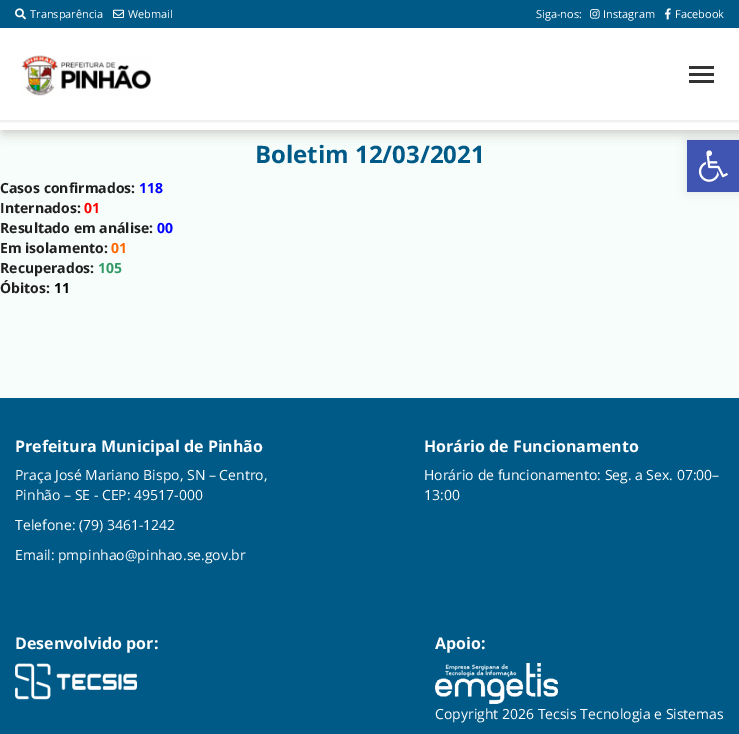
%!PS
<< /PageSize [739 734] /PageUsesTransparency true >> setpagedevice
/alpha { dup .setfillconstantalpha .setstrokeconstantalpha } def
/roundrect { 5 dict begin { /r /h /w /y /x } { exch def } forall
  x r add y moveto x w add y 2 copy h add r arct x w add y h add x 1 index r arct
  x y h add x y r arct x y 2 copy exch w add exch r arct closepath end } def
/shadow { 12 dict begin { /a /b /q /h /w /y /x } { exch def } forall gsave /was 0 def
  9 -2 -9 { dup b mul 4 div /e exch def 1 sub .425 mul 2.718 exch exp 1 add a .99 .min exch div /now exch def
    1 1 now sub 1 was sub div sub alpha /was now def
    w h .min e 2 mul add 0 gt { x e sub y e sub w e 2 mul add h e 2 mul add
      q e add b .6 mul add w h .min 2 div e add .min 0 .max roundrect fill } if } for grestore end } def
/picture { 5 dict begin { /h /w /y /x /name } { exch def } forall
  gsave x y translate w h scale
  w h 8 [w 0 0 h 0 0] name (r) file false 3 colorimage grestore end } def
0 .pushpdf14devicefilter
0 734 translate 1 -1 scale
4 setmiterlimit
0.969 0.992 0.98 setrgbcolor
0 0 739 734 rectfill
0.757 0.745 0.745 setrgbcolor
3 2 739 130 0 6 1 shadow
1 setgray
0 28 739 102 rectfill
0 0.353 0.529 setrgbcolor
0 0 739 28 rectfill
(img1.rgb) 15 8 11 12 picture
/OpenSans-Regular [11 0 0 -11 0 0] selectfont
1 setgray
30 18 moveto (Transparência) show
(img2.rgb) 113 9 11 9 picture
128 18 moveto (Webmail) show
536 18 moveto (Siga-nos:) show
(img3.rgb) 590 9 10 10 picture
603 18 moveto (Instagram) show
(img4.rgb) 665 8 6 12 picture
675 18 moveto (Facebook) show
gsave
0 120 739 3 rectclip
0 setgray
0 30 739 92 0 2 0.08 shadow
grestore
(img5.rgb) 21 55 130 41 picture
0.2 setgray
689 66 25 3 rectfill
689 73 25 3 rectfill
689 80 25 3 rectfill
/OpenSans-Bold [24 0 0 -24 0 0] selectfont
0 0.353 0.529 setrgbcolor
255 163 moveto (Boletim 12/03/2021) show
/OpenSans-Bold [14 0 0 -14 0 0] selectfont
0.125 setgray
0 193 moveto (Casos confirmados:) show
0 0 1 setrgbcolor
139 193 moveto (118) show
0.125 setgray
0 213 moveto (Internados:) show
1 0 0 setrgbcolor
84 213 moveto (01) show
0.125 setgray
0 233 moveto (Resultado em análise:) show
0 0 1 setrgbcolor
157 233 moveto (00) show
0.125 setgray
0 253 moveto (Em isolamento:) show
1 0.4 0 setrgbcolor
111 253 moveto (01) show
0.125 setgray
0 273 moveto (Recuperados:) show
0.2 0.6 0.4 setrgbcolor
98 273 moveto (105) show
0.125 setgray
0 293 moveto (Óbitos:) show
0 setgray
54 293 moveto (11) show
0 0.353 0.529 setrgbcolor
0 398 739 336 rectfill
/OpenSans-Bold [16 0 0 -16 0 0] selectfont
1 setgray
15 452 moveto (Prefeitura Municipal de Pinhão) show
/OpenSans-Regular [14 0 0 -14 0 0] selectfont
15 480 moveto (Praça José Mariano Bispo, SN – Centro,) show
15 500 moveto (Pinhão – SE - CEP: 49517-000) show
15 530 moveto (Telefone: \(79\) 3461-1242) show
15 560 moveto (Email: pmpinhao@pinhao.se.gov.br) show
/OpenSans-Bold [16 0 0 -16 0 0] selectfont
424 452 moveto (Horário de Funcionamento) show
/OpenSans-Regular [14 0 0 -14 0 0] selectfont
424 480 moveto (Horário de funcionamento: Seg. a Sex. 07:00–) show
424 500 moveto (13:00) show
/OpenSans-Bold [16 0 0 -16 0 0] selectfont
15 649 moveto (Desenvolvido por:) show
(img6.rgb) 15 663 122 37 picture
435 649 moveto (Apoio:) show
(img7.rgb) 435 663 123 41 picture
/OpenSans-Regular [14 0 0 -14 0 0] selectfont
435 719 moveto (Copyright 2026 Tecsis Tecnologia e Sistemas) show
0 setgray
687 140 52 52 0 5 0.1 shadow
0.251 0.329 0.698 setrgbcolor
687 140 52 52 rectfill
(img8.rgb) 698 150 30 32 picture
.poppdf14devicefilter showpage
